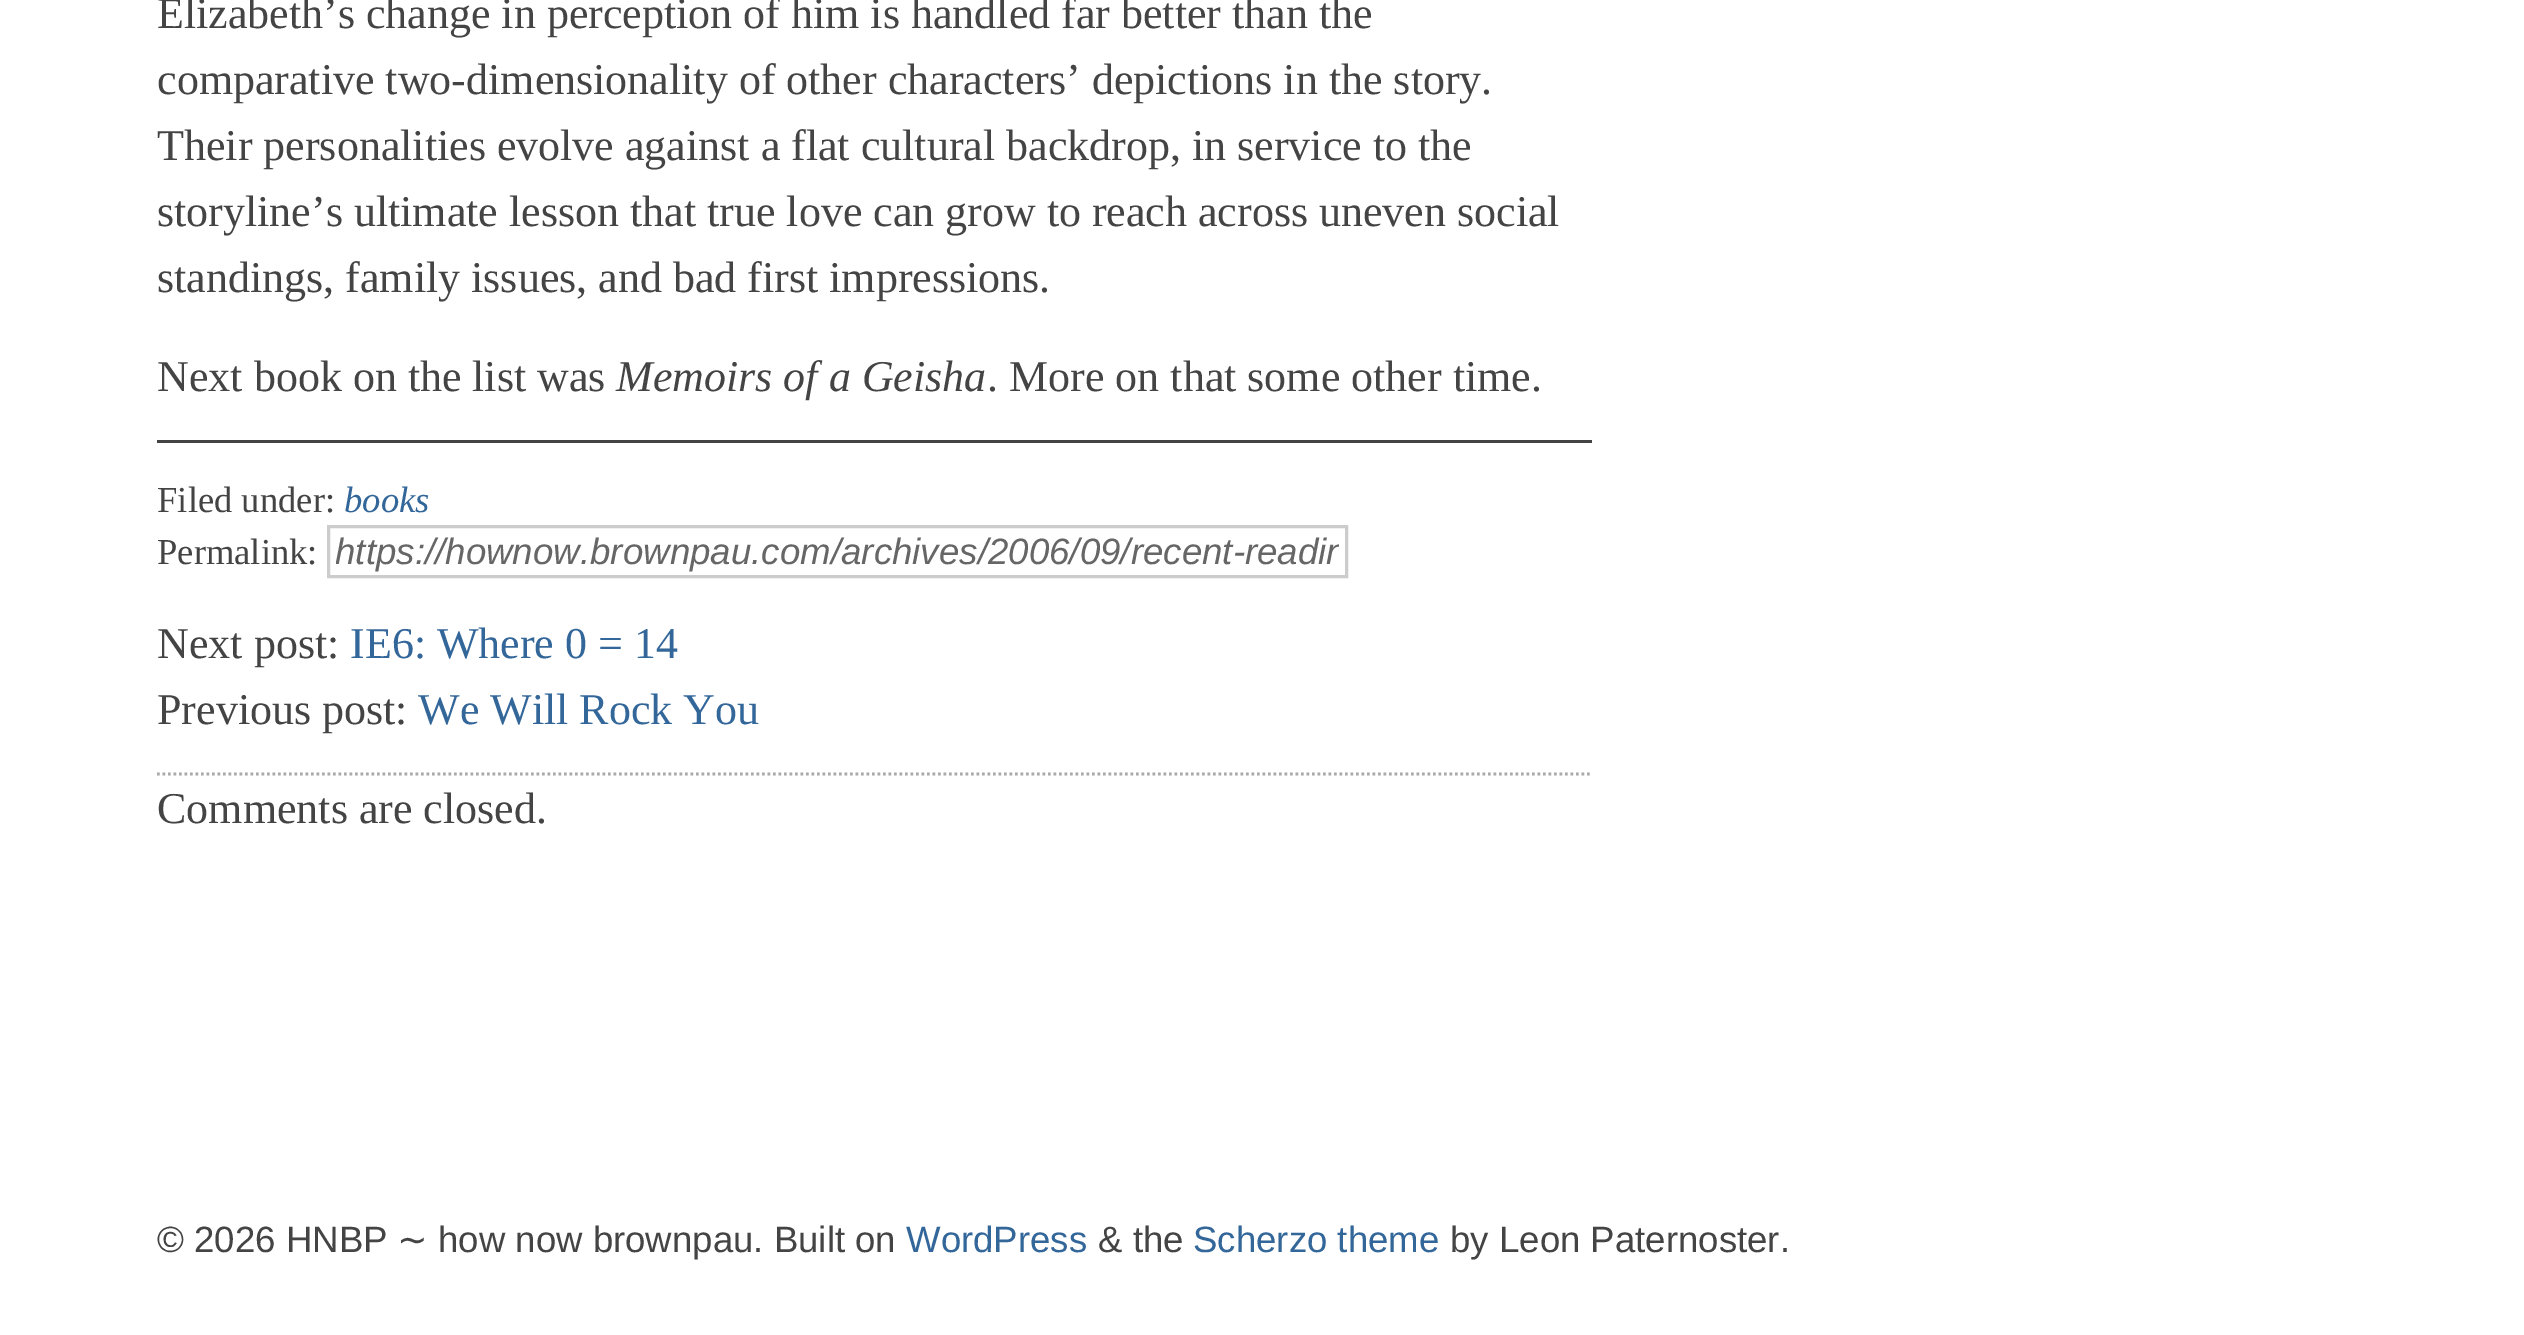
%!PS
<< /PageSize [2524 1335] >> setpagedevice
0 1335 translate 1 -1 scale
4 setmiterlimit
1 setgray
0 0 2524 1335 rectfill
/LiberationSerif-Regular [44 0 0 -44 0 0] selectfont
0.267 setgray
157 28 moveto (Elizabeth’s change in perception of him is handled far better than the) show
157 94 moveto (comparative two-dimensionality of other characters’ depictions in the story.) show
157 160 moveto (Their personalities evolve against a flat cultural backdrop, in service to the) show
157 226 moveto (storyline’s ultimate lesson that true love can grow to reach across uneven social) show
157 292 moveto (standings, family issues, and bad first impressions.) show
157 391 moveto (Next book on the list was) show
/LiberationSerif-Italic [44 0 0 -44 0 0] selectfont
616 391 moveto (Memoirs of a Geisha) show
/LiberationSerif-Regular [44 0 0 -44 0 0] selectfont
987 391 moveto (. More on that some other time.) show
157 440 1435 3 rectfill
/LiberationSerif-Regular [36.6 0 0 -36.6 0 0] selectfont
157 512 moveto (Filed under:) show
/LiberationSerif-Italic [36.6 0 0 -36.6 0 0] selectfont
0.2 0.4 0.6 setrgbcolor
344 512 moveto (books) show
/LiberationSerif-Regular [36.6 0 0 -36.6 0 0] selectfont
0.267 setgray
157 564 moveto (Permalink:) show
0.8 setgray
3 setlinewidth
328.5 526.5 1018 50 rectstroke
gsave
336 531 1003 41 rectclip
/LiberationSans-Italic [36.7 0 0 -36.7 0 0] selectfont
0.4 setgray
335 564 moveto (https://hownow.brownpau.com/archives/2006/09/recent-readin) show
grestore
/LiberationSerif-Regular [44 0 0 -44 0 0] selectfont
0.267 setgray
157 658 moveto (Next post:) show
0.2 0.4 0.6 setrgbcolor
350 658 moveto (IE6: Where 0 = 14) show
0.267 setgray
157 724 moveto (Previous post:) show
0.2 0.4 0.6 setrgbcolor
418 724 moveto (We Will Rock You) show
0.667 setgray
2.8 setlinewidth
[2.75 2.75] 0 setdash
newpath 157 774 moveto 1592 774 lineto stroke
0.267 setgray
157 823 moveto (Comments are closed.) show
/LiberationSans-Regular [36.6 0 0 -36.6 0 0] selectfont
157 1252 moveto (© 2026 HNBP) show
/DejaVuSans-Regular [36.6 0 0 -36.6 0 0] selectfont
397 1252 moveto (∼) show
/LiberationSans-Regular [36.6 0 0 -36.6 0 0] selectfont
438 1252 moveto (how now brownpau. Built on) show
0.2 0.4 0.6 setrgbcolor
906 1252 moveto (WordPress) show
0.267 setgray
1098 1252 moveto (& the) show
0.2 0.4 0.6 setrgbcolor
1193 1252 moveto (Scherzo theme) show
0.267 setgray
1450 1252 moveto (by Leon Paternoster.) show
showpage
